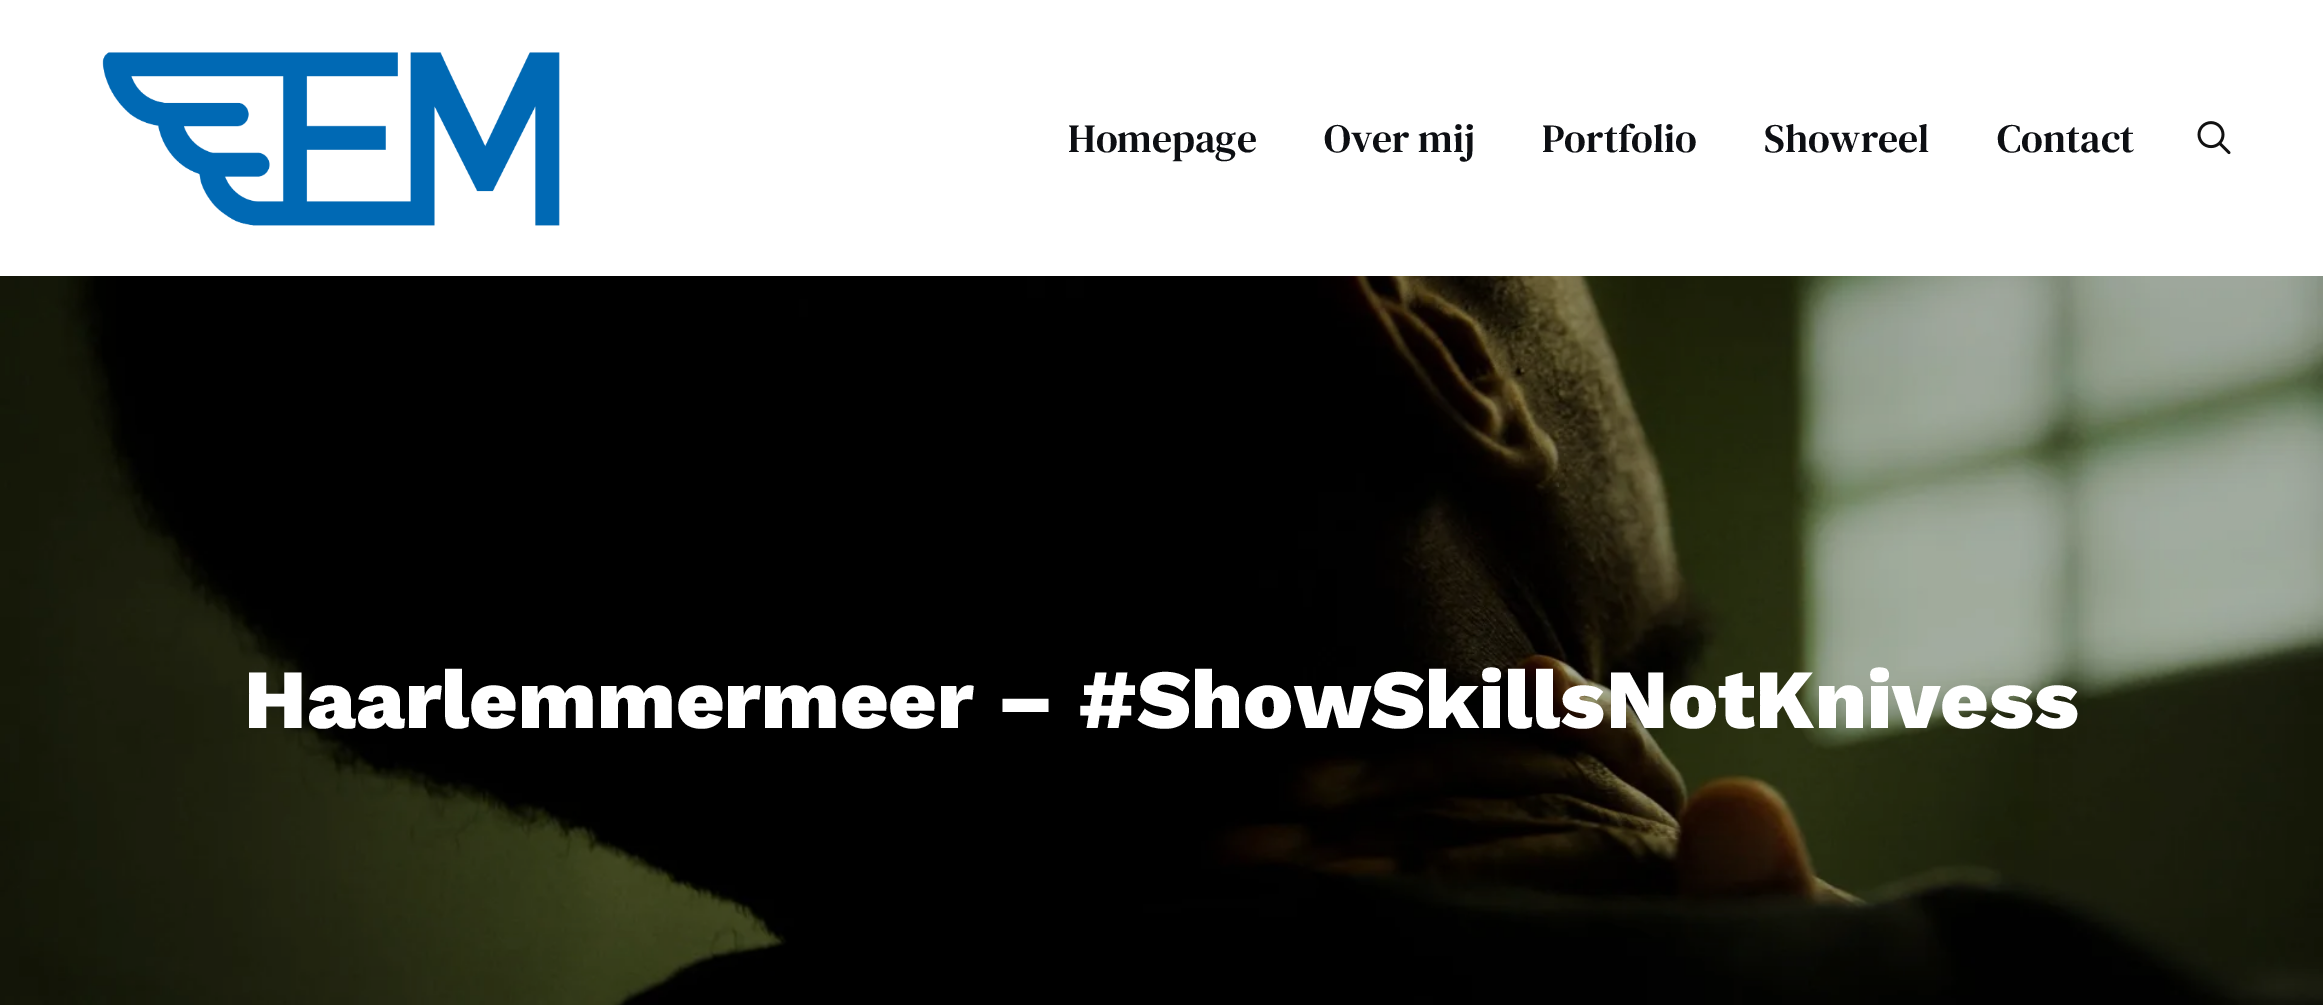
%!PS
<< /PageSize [2323 1005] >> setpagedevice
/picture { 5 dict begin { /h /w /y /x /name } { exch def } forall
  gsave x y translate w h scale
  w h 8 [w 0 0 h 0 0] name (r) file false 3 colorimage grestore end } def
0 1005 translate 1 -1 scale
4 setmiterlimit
1 setgray
0 0 2323 1005 rectfill
(img1.rgb) 102 52 458 174 picture
/DMSerifText-Regular [40 0 0 -40 0 0] selectfont
0.051 0.059 0.075 setrgbcolor
1068 152 moveto (Homepage) show
1324 152 moveto (Over mij) show
1542 152 moveto (Portfolio) show
1764 152 moveto (Showreel) show
1997 152 moveto (Contact) show
(img2.rgb) 2197 121 34 34 picture
(img3.rgb) 0 276 2323 729 picture
/WorkSans-ExtraBold [84 0 0 -84 0 0] selectfont
1 setgray
244 728 moveto (Haarlemmermeer – #ShowSkillsNotKnivess) show
showpage
